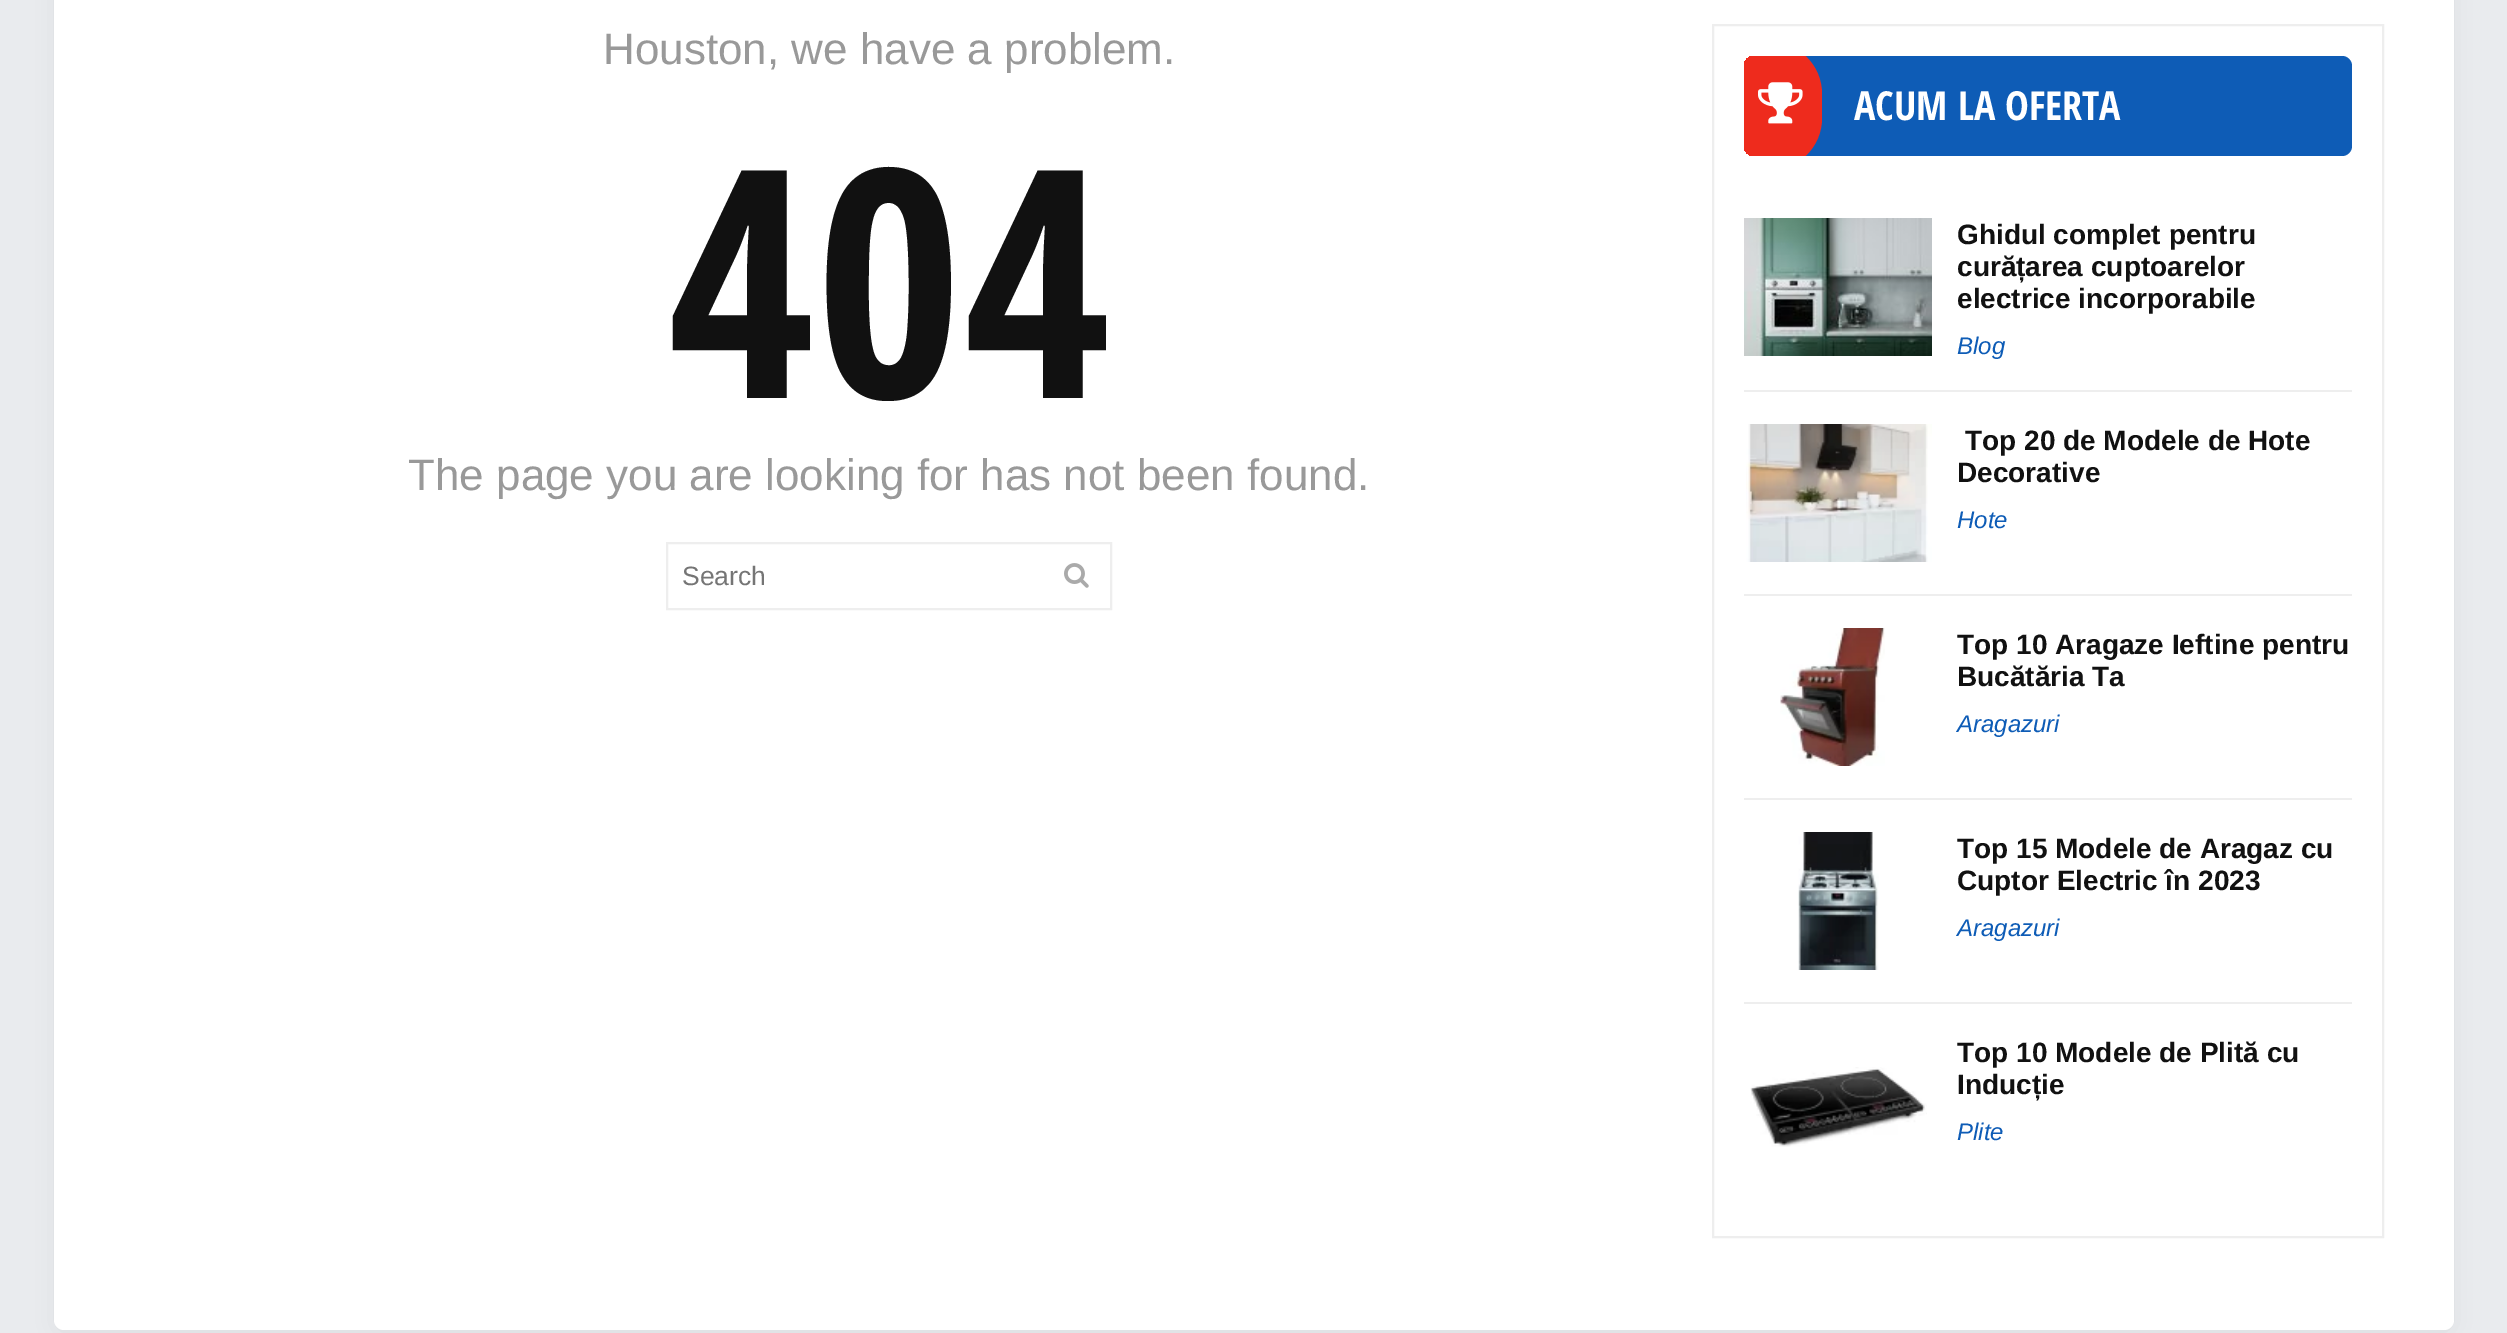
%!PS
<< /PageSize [2507 1333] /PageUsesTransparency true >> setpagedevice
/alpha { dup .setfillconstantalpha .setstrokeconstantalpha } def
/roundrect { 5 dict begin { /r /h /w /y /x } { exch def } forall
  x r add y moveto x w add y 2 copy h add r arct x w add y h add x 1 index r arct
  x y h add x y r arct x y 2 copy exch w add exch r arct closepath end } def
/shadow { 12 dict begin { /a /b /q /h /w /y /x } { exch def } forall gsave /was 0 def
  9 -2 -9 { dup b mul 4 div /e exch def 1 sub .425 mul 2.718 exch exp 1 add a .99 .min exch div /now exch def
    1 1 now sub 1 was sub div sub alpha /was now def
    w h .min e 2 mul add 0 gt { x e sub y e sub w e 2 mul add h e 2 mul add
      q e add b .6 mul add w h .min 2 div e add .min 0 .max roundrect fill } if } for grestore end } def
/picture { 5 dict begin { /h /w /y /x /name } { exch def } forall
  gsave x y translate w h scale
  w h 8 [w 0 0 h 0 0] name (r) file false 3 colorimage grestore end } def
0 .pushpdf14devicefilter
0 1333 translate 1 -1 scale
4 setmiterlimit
0.914 0.922 0.933 setrgbcolor
0 0 2507 1333 rectfill
0 setgray
62 -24 2384 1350 2 12 0.1 shadow
1 setgray
54 -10 2400 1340 10 roundrect fill
/LiberationSans-Regular [44 0 0 -44 0 0] selectfont
0.6 setgray
603 64 moveto (Houston, we have a problem.) show
/OpenSansCondensed-Bold [320 0 0 -320 0 0] selectfont
0.067 setgray
667 398 moveto (404) show
/LiberationSans-Regular [44 0 0 -44 0 0] selectfont
0.6 setgray
408 490 moveto (The page you are looking for has not been found.) show
0.933 setgray
2 setlinewidth
667 543 444 66 rectstroke
/LiberationSans-Regular [26.5 0 0 -26.5 0 0] selectfont
0.459 setgray
682 585 moveto (Search) show
(img1.rgb) 1064 563 25 25 picture
0.933 setgray
1713 25 670 1212 rectstroke
0.055 0.361 0.714 setrgbcolor
1744 56 608 100 10 roundrect fill
gsave
1744 56 608 100 10 roundrect clip newpath
0.933 0.169 0.114 setrgbcolor
1718 42 104 128 52 roundrect fill
grestore
(img2.rgb) 1758 82 45 42 picture
/OpenSansCondensed-Bold [40 0 0 -40 0 0] selectfont
1 setgray
1854 120 moveto (ACUM LA OFERTA) show
0.933 setgray
1744 390 608 2 rectfill
(img3.rgb) 1744 218 188 138 picture
/LiberationSans-Bold [28 0 0 -28 0 0] selectfont
0.067 setgray
1957 244 moveto (Ghidul complet pentru) show
1957 276 moveto (curățarea cuptoarelor) show
1957 308 moveto (electrice incorporabile) show
/LiberationSans-Italic [24 0 0 -24 0 0] selectfont
0.055 0.361 0.714 setrgbcolor
1957 354 moveto (Blog) show
0.933 setgray
1744 594 608 2 rectfill
(img4.rgb) 1746 424 186 138 picture
/LiberationSans-Bold [28 0 0 -28 0 0] selectfont
0.067 setgray
1965 450 moveto (Top 20 de Modele de Hote) show
1957 482 moveto (Decorative) show
/LiberationSans-Italic [24 0 0 -24 0 0] selectfont
0.055 0.361 0.714 setrgbcolor
1957 528 moveto (Hote) show
0.933 setgray
1744 798 608 2 rectfill
(img5.rgb) 1780 628 105 138 picture
/LiberationSans-Bold [28 0 0 -28 0 0] selectfont
0.067 setgray
1957 654 moveto (Top 10 Aragaze Ieftine pentru) show
1957 686 moveto (Bucătăria Ta) show
/LiberationSans-Italic [24 0 0 -24 0 0] selectfont
0.055 0.361 0.714 setrgbcolor
1957 732 moveto (Aragazuri) show
0.933 setgray
1744 1002 608 2 rectfill
(img6.rgb) 1798 832 81 138 picture
/LiberationSans-Bold [28 0 0 -28 0 0] selectfont
0.067 setgray
1957 858 moveto (Top 15 Modele de Aragaz cu) show
1957 890 moveto (Cuptor Electric în 2023) show
/LiberationSans-Italic [24 0 0 -24 0 0] selectfont
0.055 0.361 0.714 setrgbcolor
1957 936 moveto (Aragazuri) show
(img7.rgb) 1750 1067 177 80 picture
/LiberationSans-Bold [28 0 0 -28 0 0] selectfont
0.067 setgray
1957 1062 moveto (Top 10 Modele de Plită cu) show
1957 1094 moveto (Inducție) show
/LiberationSans-Italic [24 0 0 -24 0 0] selectfont
0.055 0.361 0.714 setrgbcolor
1957 1140 moveto (Plite) show
.poppdf14devicefilter showpage
